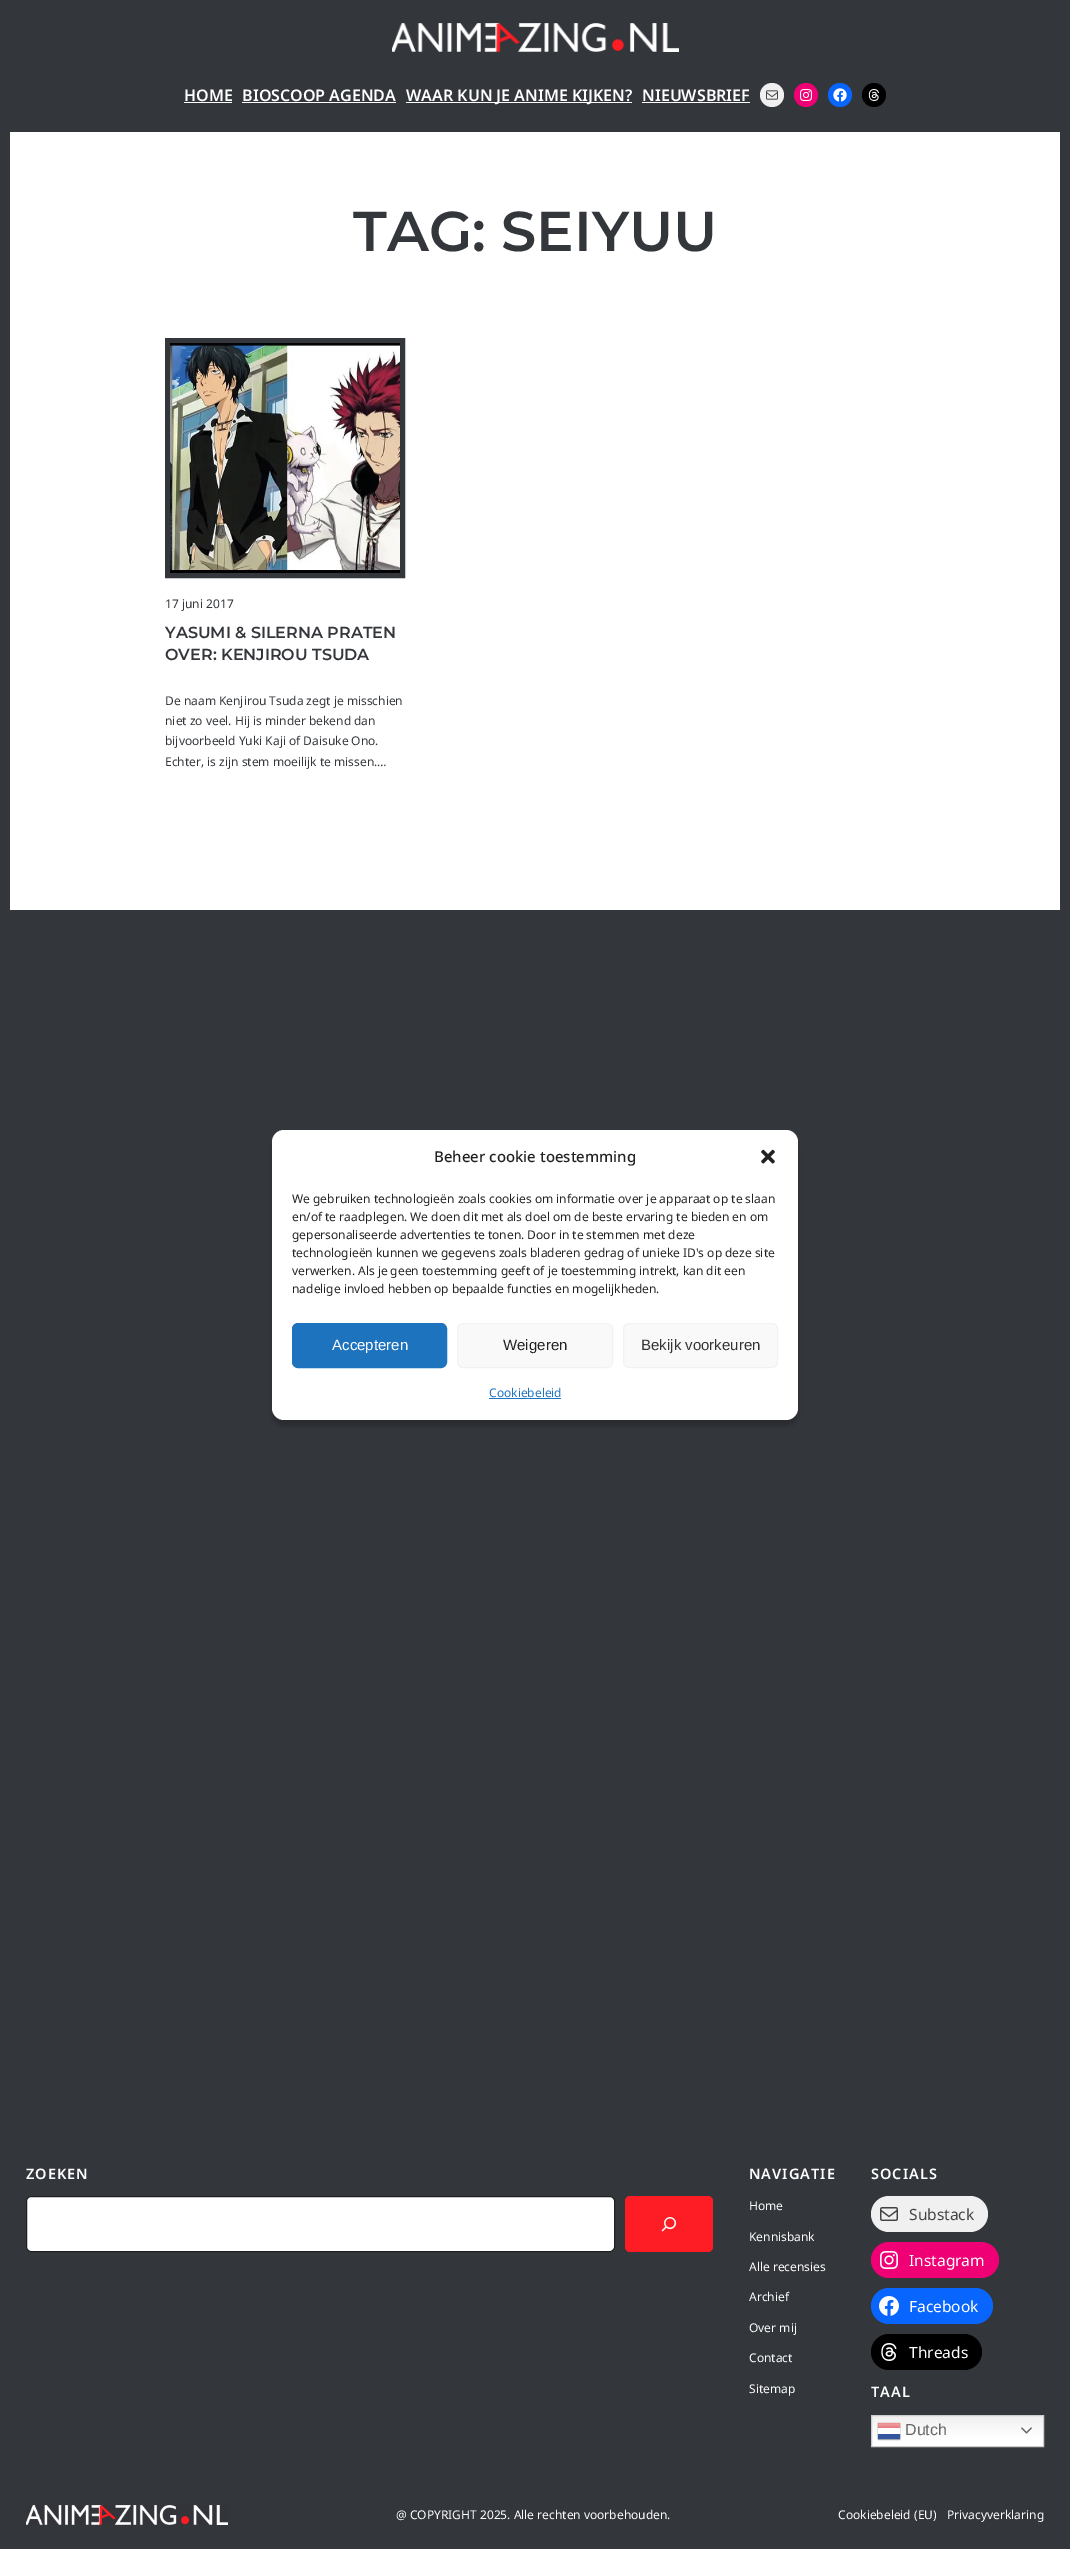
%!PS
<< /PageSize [1070 2549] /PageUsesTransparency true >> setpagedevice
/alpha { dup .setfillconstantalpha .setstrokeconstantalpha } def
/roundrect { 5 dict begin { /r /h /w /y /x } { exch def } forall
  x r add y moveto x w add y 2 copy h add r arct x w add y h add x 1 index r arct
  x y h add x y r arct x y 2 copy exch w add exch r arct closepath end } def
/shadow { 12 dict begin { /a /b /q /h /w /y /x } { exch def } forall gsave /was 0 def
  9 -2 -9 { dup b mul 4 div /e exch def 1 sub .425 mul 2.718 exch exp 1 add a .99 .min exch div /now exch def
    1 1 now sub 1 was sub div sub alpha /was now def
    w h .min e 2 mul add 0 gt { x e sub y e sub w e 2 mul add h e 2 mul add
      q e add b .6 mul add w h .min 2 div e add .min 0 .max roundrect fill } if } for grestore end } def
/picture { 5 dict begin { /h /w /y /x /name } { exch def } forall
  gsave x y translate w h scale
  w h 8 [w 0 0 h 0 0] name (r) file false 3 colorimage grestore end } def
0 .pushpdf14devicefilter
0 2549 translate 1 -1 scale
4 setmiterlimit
0.2 0.212 0.231 setrgbcolor
0 0 1070 2549 rectfill
(img1.rgb) 392 23 287 29 picture
/NotoSans-SemiBold [16 0 0 -16 0 0] selectfont
1 setgray
184 101 moveto (HOME) show
184 102 48 1 rectfill
242 101 moveto (BIOSCOOP AGENDA) show
242 102 154 1 rectfill
406 102 226 1 rectfill
406 101 moveto (WAAR KUN JE ANIME KIJKEN?) show
642 101 moveto (NIEUWSBRIEF) show
642 102 108 1 rectfill
0.941 setgray
newpath 772 95 12 0 360 arc closepath fill
(img2.rgb) 766 90 12 10 picture
0.941 0 0.459 setrgbcolor
newpath 806 95 12 0 360 arc closepath fill
(img3.rgb) 800 89 12 12 picture
0.031 0.4 1 setrgbcolor
newpath 840 95 12 0 360 arc closepath fill
(img4.rgb) 833 88 14 14 picture
0 setgray
newpath 874 95 12 0 360 arc closepath fill
(img5.rgb) 868 89 11 12 picture
1 setgray
10 132 1050 778 rectfill
/Montserrat-SemiBold [56 0 0 -56 0 0] selectfont
0.2 0.212 0.231 setrgbcolor
353 251 moveto (TAG: SEIYUU) show
5 setlinewidth
167.5 340.5 235 235 rectstroke
(img6.rgb) 170 343 230 230 picture
/NotoSans-Regular [12 0 0 -12 0 0] selectfont
165 608 moveto (17 juni 2017) show
/Montserrat-SemiBold [16 0 0 -16 0 0] selectfont
165 638 moveto (YASUMI & SILERNA PRATEN) show
165 660 moveto (OVER: KENJIROU TSUDA) show
/NotoSans-Regular [12 0 0 -12 0 0] selectfont
165 705 moveto (De naam Kenjirou Tsuda zegt je misschien) show
165 725 moveto (niet zo veel. Hij is minder bekend dan) show
165 745 moveto (bijvoorbeeld Yuki Kaji of Daisuke Ono.) show
165 766 moveto (Echter, is zijn stem moeilijk te missen.…) show
/NotoSans-SemiBold [14.5 0 0 -14.5 0 0] selectfont
1 setgray
26 2179 moveto 1 0 (ZOEKEN) ashow
26.5 2196.5 588 55 4.5 roundrect gsave fill grestore
0.125 setgray
1 setlinewidth
stroke
1 0.114 0.145 setrgbcolor
625 2196 88 56 5 roundrect fill
(img7.rgb) 661 2217 16 15 picture
1 setgray
749 2179 moveto 1 0 (NAVIGATIE) ashow
/NotoSans-Regular [12 0 0 -12 0 0] selectfont
749 2210 moveto (Home) show
749 2241 moveto (Kennisbank) show
749 2271 moveto (Alle recensies) show
749 2301 moveto (Archief) show
749 2332 moveto (Over mij) show
749 2362 moveto (Contact) show
749 2393 moveto (Sitemap) show
/NotoSans-SemiBold [14.5 0 0 -14.5 0 0] selectfont
871 2179 moveto 1 0 (SOCIALS) ashow
0.941 setgray
871 2196 117 36 18 roundrect fill
(img8.rgb) 880 2207 18 14 picture
/NotoSans-Regular [15.5 0 0 -15.5 0 0] selectfont
0.267 setgray
909 2220 moveto (Substack) show
0.941 0 0.459 setrgbcolor
871 2242 128 36 18 roundrect fill
(img9.rgb) 880 2251 18 18 picture
1 setgray
909 2266 moveto (Instagram) show
0.031 0.4 1 setrgbcolor
871 2288 122 36 18 roundrect fill
(img10.rgb) 879 2296 20 20 picture
1 setgray
909 2312 moveto (Facebook) show
0 setgray
871 2334 111 36 18 roundrect fill
(img11.rgb) 881 2343 16 18 picture
1 setgray
909 2358 moveto (Threads) show
/NotoSans-SemiBold [14.5 0 0 -14.5 0 0] selectfont
871 2397 moveto 1 0 (TAAL) ashow
gsave newpath 872 2416 moveto 1043 2416 lineto 1043 2446 lineto 872 2446 lineto closepath clip newpath
<< /ShadingType 2 /ColorSpace /DeviceRGB /Coords [958 2415 958 2447] /Extend [true true] /Function << /FunctionType 3 /Domain [0 1] /Functions [<< /FunctionType 2 /Domain [0 1] /C0 [0.937 0.937 0.937] /C1 [1 1 1] /N 1 >> << /FunctionType 2 /Domain [0 1] /C0 [1 1 1] /C1 [1 1 1] /N 1 >>] /Bounds [0.7] /Encode [0 1 0 1] >> >> shfill grestore
0.8 setgray
871.5 2415.5 172 31 rectstroke
(img12.rgb) 877 2422 24 19 picture
/LiberationSans-Regular [16 0 0 -16 0 0] selectfont
0.4 setgray
905 2435 moveto (Dutch) show
(img13.rgb) 1021 2427 11 7 picture
(img14.rgb) 26 2505 202 20 picture
/NotoSans-Regular [12 0 0 -12 0 0] selectfont
1 setgray
396 2519 moveto (@ COPYRIGHT 2025. Alle rechten voorbehouden.) show
838 2519 moveto (Cookiebeleid \(EU\)) show
947 2519 moveto (Privacyverklaring) show
0 setgray
272 1136 526 290 12 3 0.23 shadow
1 setgray
272 1130 526 290 12 roundrect fill
/NotoSans-Medium [15 0 0 -15 0 0] selectfont
0.133 setgray
434 1162 moveto (Beheer cookie toestemming) show
(img15.rgb) 761 1149 14 15 picture
/NotoSans-Regular [12 0 0 -12 0 0] selectfont
292 1203 moveto (We gebruiken technologieën zoals cookies om informatie over je apparaat op te slaan) show
292 1221 moveto (en/of te raadplegen. We doen dit met als doel om de beste ervaring te bieden en om) show
292 1239 moveto (gepersonaliseerde advertenties te tonen. Door in te stemmen met deze) show
292 1257 moveto (technologieën kunnen we gegevens zoals bladeren gedrag of unieke ID's op deze site) show
292 1275 moveto (verwerken. Als je geen toestemming geeft of je toestemming intrekt, kan dit een) show
292 1293 moveto (nadelige invloed hebben op bepaalde functies en mogelijkheden.) show
0.118 0.451 0.745 setrgbcolor
292.5 1323.5 154 44 5.5 roundrect gsave fill grestore
stroke
/LiberationSans-Regular [15 0 0 -15 0 0] selectfont
1 setgray
332 1350 moveto (Accepteren) show
0.976 setgray
457.5 1323.5 155 44 5.5 roundrect gsave fill grestore
0.949 setgray
stroke
0.133 setgray
503 1350 moveto (Weigeren) show
0.976 setgray
623.5 1323.5 154 44 5.5 roundrect gsave fill grestore
0.949 setgray
stroke
0.2 setgray
641 1350 moveto (Bekijk voorkeuren) show
/NotoSans-Regular [12 0 0 -12 0 0] selectfont
0.118 0.451 0.745 setrgbcolor
489 1397 moveto (Cookiebeleid) show
489 1398 72 1 rectfill
.poppdf14devicefilter showpage
